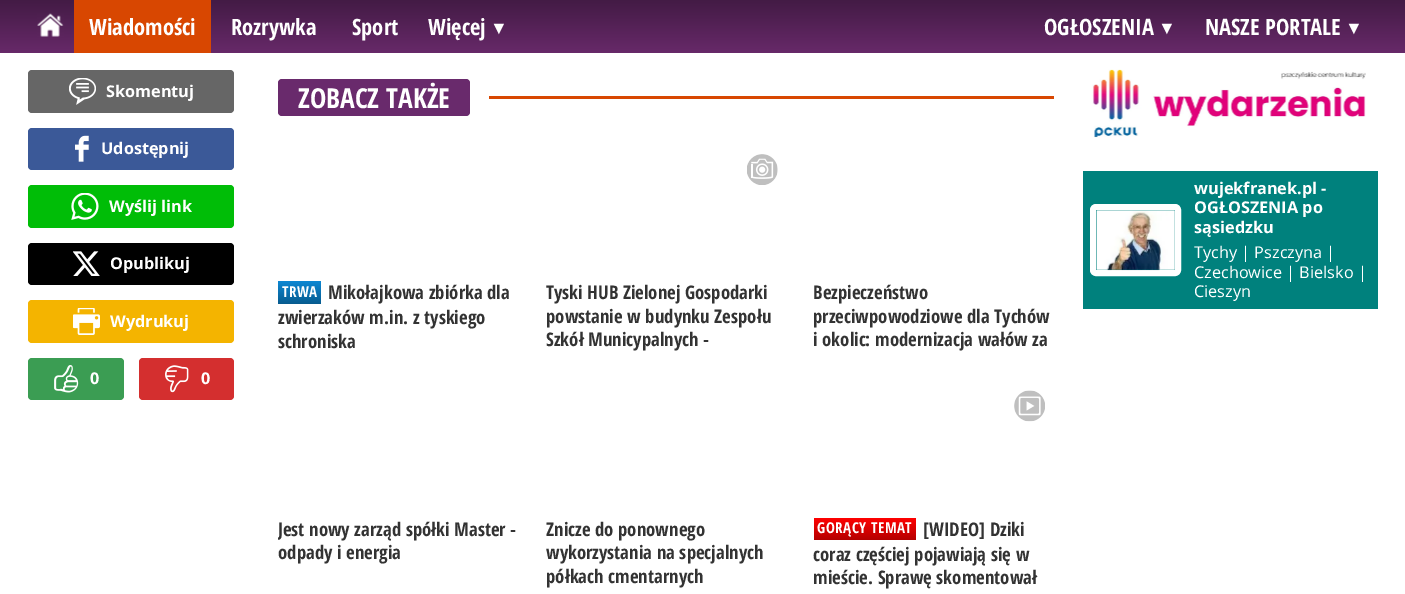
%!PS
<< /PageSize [1405 594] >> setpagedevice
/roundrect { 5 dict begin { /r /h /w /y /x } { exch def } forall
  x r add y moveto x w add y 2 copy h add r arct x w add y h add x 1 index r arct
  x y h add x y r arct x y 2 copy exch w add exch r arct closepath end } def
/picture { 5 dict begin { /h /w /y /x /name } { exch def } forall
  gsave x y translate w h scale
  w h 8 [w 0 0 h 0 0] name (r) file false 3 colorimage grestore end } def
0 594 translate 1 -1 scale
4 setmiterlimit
1 setgray
0 0 1405 594 rectfill
gsave newpath 0 0 moveto 1405 0 lineto 1405 53 lineto 0 53 lineto closepath clip newpath
<< /ShadingType 2 /ColorSpace /DeviceRGB /Coords [703 0 703 53] /Extend [true true] /Function << /FunctionType 2 /Domain [0 1] /C0 [0.263 0.106 0.271] /C1 [0.404 0.161 0.412] /N 1 >> >> shfill grestore
(img1.rgb) 37 13 27 24 picture
0.847 0.278 0.004 setrgbcolor
74 0 137 53 rectfill
/OpenSansCondensed-Bold [22.5 0 0 -22.5 0 0] selectfont
1 setgray
89 35 moveto (Wiadomości) show
231 35 moveto (Rozrywka) show
352 35 moveto (Sport) show
428 35 moveto (Więcej) show
/LiberationSans-Bold [18 0 0 -18 0 0] selectfont
490 34 moveto (▼) show
/OpenSansCondensed-Bold [22.5 0 0 -22.5 0 0] selectfont
1044 35 moveto (OGŁOSZENIA) show
/LiberationSans-Bold [18 0 0 -18 0 0] selectfont
1158 34 moveto (▼) show
/OpenSansCondensed-Bold [22.5 0 0 -22.5 0 0] selectfont
1205 35 moveto (NASZE PORTALE) show
/LiberationSans-Bold [18 0 0 -18 0 0] selectfont
1345 34 moveto (▼) show
0.4 setgray
28 70 206 43 4 roundrect fill
(img2.rgb) 69 78 27 27 picture
/OpenSans-Bold [16.25 0 0 -16.25 0 0] selectfont
1 setgray
106 97 moveto (Skomentuj) show
0.231 0.349 0.596 setrgbcolor
28 128 206 42 4 roundrect fill
(img3.rgb) 75 135 14 27 picture
1 setgray
101 154 moveto (Udostępnij) show
0 0.741 0.027 setrgbcolor
28 185 206 43 4 roundrect fill
(img4.rgb) 71 193 28 27 picture
1 setgray
109 212 moveto (Wyślij link) show
0 setgray
28 243 206 42 4 roundrect fill
(img5.rgb) 73 251 27 25 picture
1 setgray
110 269 moveto (Opublikuj) show
0.957 0.706 0 setrgbcolor
28 300 206 43 4 roundrect fill
(img6.rgb) 73 308 27 27 picture
1 setgray
110 327 moveto (Wydrukuj) show
0.231 0.616 0.325 setrgbcolor
28 358 96 42 4 roundrect fill
(img7.rgb) 54 365 25 28 picture
1 setgray
90 384 moveto (0) show
0.831 0.184 0.184 setrgbcolor
139 358 95 42 4 roundrect fill
(img8.rgb) 165 365 24 28 picture
1 setgray
201 384 moveto (0) show
0.412 0.165 0.424 setrgbcolor
278 79 192 37 4 roundrect fill
/OpenSansCondensed-Bold [27.5 0 0 -27.5 0 0] selectfont
1 setgray
298 108 moveto (ZOBACZ TAKŻE) show
0.847 0.278 0.004 setrgbcolor
489 96 565 3 rectfill
gsave newpath 278 281 moveto 318.5 281 lineto 320 281 321 282 321 283.5 curveto 321 304 lineto 278 304 lineto closepath clip newpath
<< /ShadingType 2 /ColorSpace /DeviceRGB /Coords [299 281 299 304] /Extend [true true] /Function << /FunctionType 2 /Domain [0 1] /C0 [0.051 0.529 0.827] /C1 [0.027 0.361 0.561] /N 1 >> >> shfill grestore
/OpenSansCondensed-Bold [15 0 0 -15 0 0] selectfont
1 setgray
282 297 moveto 0.5 0 (TRWA) ashow
/OpenSansCondensed-Bold [18.75 0 0 -18.75 0 0] selectfont
0.2 setgray
328 299 moveto (Mikołajkowa zbiórka dla) show
278 324 moveto (zwierzaków m.in. z tyskiego) show
278 348 moveto (schroniska) show
(img9.rgb) 747 154 31 31 picture
546 299 moveto (Tyski HUB Zielonej Gospodarki) show
546 323 moveto (powstanie w budynku Zespołu) show
546 346 moveto (Szkół Municypalnych -) show
813 299 moveto (Bezpieczeństwo) show
813 323 moveto (przeciwpowodziowe dla Tychów) show
813 346 moveto (i okolic: modernizacja wałów za) show
gsave
278 518 241 46 rectclip
278 536 moveto (Jest nowy zarząd spółki Master -) show
grestore
278 559 moveto (odpady i energia) show
546 536 moveto (Znicze do ponownego) show
546 559 moveto (wykorzystania na specjalnych) show
546 583 moveto (półkach cmentarnych) show
(img10.rgb) 1014 390 31 32 picture
gsave newpath 814 518 moveto 913.5 518 lineto 915 518 916 519 916 520.5 curveto 916 540 lineto 814 540 lineto closepath clip newpath
<< /ShadingType 2 /ColorSpace /DeviceRGB /Coords [865 518 865 540] /Extend [true true] /Function << /FunctionType 2 /Domain [0 1] /C0 [1 0 0] /C1 [0.706 0 0] /N 1 >> >> shfill grestore
/OpenSansCondensed-Bold [15 0 0 -15 0 0] selectfont
1 setgray
817 533 moveto 0.5 0 (GORĄCY TEMAT) ashow
/OpenSansCondensed-Bold [18.75 0 0 -18.75 0 0] selectfont
0.2 setgray
923 536 moveto ([WIDEO] Dziki) show
813 561 moveto (coraz częściej pojawiają się w) show
813 584 moveto (mieście. Sprawę skomentował) show
(img11.rgb) 1092 69 274 69 picture
0 0.506 0.49 setrgbcolor
1083 171 295 138 rectfill
1 setgray
6 setlinewidth
1093 207 85 66 3 roundrect stroke
(img12.rgb) 1096 210 79 61 picture
/OpenSans-Bold [16.25 0 0 -16.25 0 0] selectfont
1194 194 moveto (wujekfranek.pl -) show
1194 213 moveto (OGŁOSZENIA po) show
1194 233 moveto (sąsiedzku) show
/OpenSans-Regular [16.25 0 0 -16.25 0 0] selectfont
1194 258 moveto (Tychy | Pszczyna |) show
1194 278 moveto (Czechowice | Bielsko |) show
1194 297 moveto (Cieszyn) show
showpage
